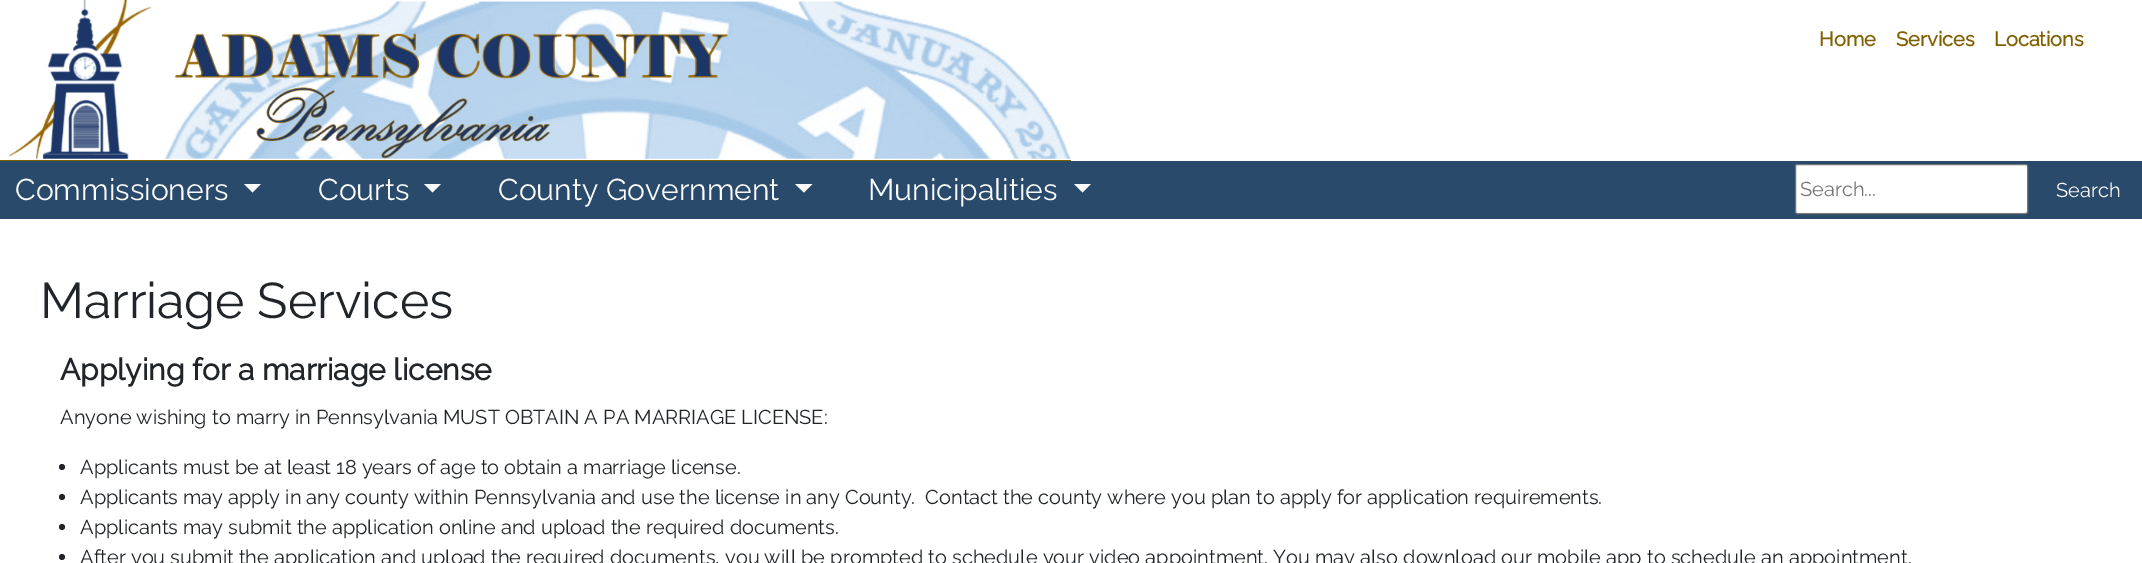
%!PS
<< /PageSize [2142 563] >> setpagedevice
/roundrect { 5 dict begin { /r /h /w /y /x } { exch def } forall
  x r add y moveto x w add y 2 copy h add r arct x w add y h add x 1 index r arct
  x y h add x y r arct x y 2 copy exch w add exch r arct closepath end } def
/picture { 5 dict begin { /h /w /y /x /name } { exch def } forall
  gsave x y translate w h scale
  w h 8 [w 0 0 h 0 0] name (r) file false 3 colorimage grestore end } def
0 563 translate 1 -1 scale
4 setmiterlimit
1 setgray
0 0 2142 563 rectfill
0.502 0.376 0 setrgbcolor
0 160 1071 1 rectfill
(img1.rgb) 0 0 1071 159 picture
/Raleway-Bold [20 0 0 -20 0 0] selectfont
1819 46 moveto (Home) show
1896 46 moveto (Services) show
1994 46 moveto (Locations) show
0.161 0.29 0.42 setrgbcolor
0 161 2142 58 rectfill
/Raleway-Thin [30 0 0 -30 0 0] selectfont
0.98 setgray
15 200 moveto (Commissioners) show
newpath 244 184 moveto 261 184 lineto 252.5 192.5 lineto closepath fill
318 200 moveto (Courts) show
newpath 424 184 moveto 441 184 lineto 432.5 192.5 lineto closepath fill
498 200 moveto (County Government) show
newpath 795 184 moveto 812.5 184 lineto 804 192.5 lineto closepath fill
868 200 moveto (Municipalities) show
newpath 1074 184 moveto 1091 184 lineto 1082.5 192.5 lineto closepath fill
1 setgray
1795.5 164.5 232 49 2 roundrect gsave fill grestore
0.463 setgray
stroke
/Raleway-Thin [20 0 0 -20 0 0] selectfont
0.459 setgray
1800 196 moveto (Search...) show
0.98 setgray
2056 197 moveto (Search) show
/Raleway-Thin [50 0 0 -50 0 0] selectfont
0.129 0.145 0.161 setrgbcolor
40 318 moveto (Marriage Services) show
/Raleway-Bold [30 0 0 -30 0 0] selectfont
60 380 moveto (Applying for a marriage license) show
/Raleway-Thin [20 0 0 -20 0 0] selectfont
60 424 moveto (Anyone wishing to marry in Pennsylvania MUST OBTAIN A PA MARRIAGE LICENSE:) show
newpath 62 467 3 0 360 arc closepath fill
80 474 moveto (Applicants must be at least 18 years of age to obtain a marriage license.) show
newpath 62 497 3 0 360 arc closepath fill
80 504 moveto (Applicants may apply in any county within Pennsylvania and use the license in any County.  Contact the county where you plan to apply for application requirements.) show
newpath 62 527 3 0 360 arc closepath fill
80 534 moveto (Applicants may submit the application online and upload the required documents.) show
newpath 62 557 3 0 360 arc closepath fill
80 564 moveto (After you submit the application and upload the required documents, you will be prompted to schedule your video appointment. You may also download our mobile app to schedule an appointment.) show
showpage
